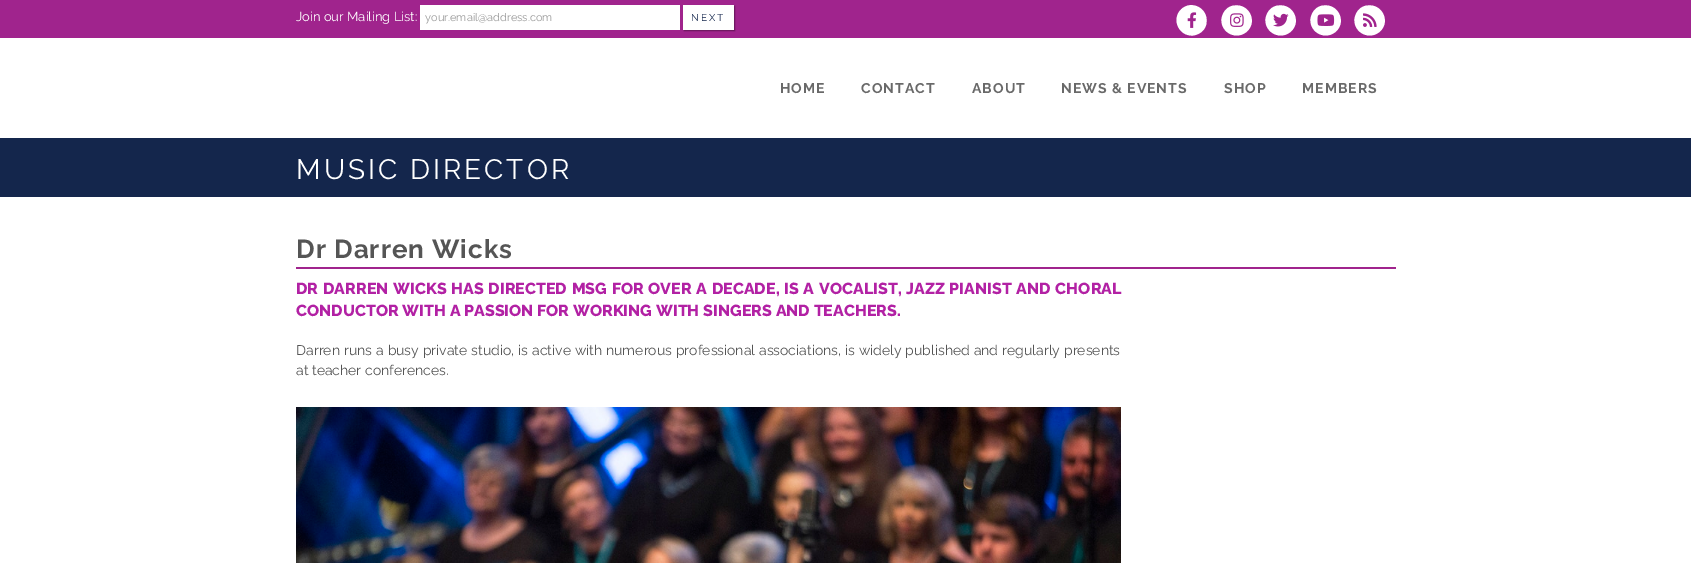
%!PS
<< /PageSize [1691 563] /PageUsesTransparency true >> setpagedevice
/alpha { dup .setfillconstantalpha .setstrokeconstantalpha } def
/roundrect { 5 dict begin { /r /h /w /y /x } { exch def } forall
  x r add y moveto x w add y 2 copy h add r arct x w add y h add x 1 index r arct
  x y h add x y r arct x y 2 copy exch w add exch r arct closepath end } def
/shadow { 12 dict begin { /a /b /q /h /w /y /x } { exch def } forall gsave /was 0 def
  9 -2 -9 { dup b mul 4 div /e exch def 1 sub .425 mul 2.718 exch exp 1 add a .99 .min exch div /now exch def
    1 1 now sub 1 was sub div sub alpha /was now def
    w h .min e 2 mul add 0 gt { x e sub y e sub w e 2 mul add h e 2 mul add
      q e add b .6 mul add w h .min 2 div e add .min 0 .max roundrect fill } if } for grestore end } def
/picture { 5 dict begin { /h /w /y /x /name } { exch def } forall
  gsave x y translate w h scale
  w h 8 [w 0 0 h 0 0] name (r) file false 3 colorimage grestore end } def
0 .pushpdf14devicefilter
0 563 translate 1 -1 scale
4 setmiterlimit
1 setgray
0 0 1691 563 rectfill
0.627 0.141 0.553 setrgbcolor
0 0 1691 38 rectfill
/Raleway-Regular [13 0 0 -13 0 0] selectfont
1 setgray
296 21 moveto (Join our Mailing List:) show
420 5 260 25 rectfill
/Raleway-Regular [11 0 0 -11 0 0] selectfont
0.6 setgray
425 21 moveto (your.email@address.com) show
0 setgray
684 6 51 25 0 0.5 0.35 shadow
1 setgray
683 5 51 25 rectfill
/Raleway-Regular [10 0 0 -10 0 0] selectfont
0.078 0.149 0.298 setrgbcolor
691 21 moveto 2 0 (NEXT) ashow
1 setgray
newpath 1181 9.5 moveto 1191 -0.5 1208 8 1206.5 22 curveto 1206.5 25.5 1205 28.5 1202.5 31 curveto 1200 33.5 1196.5 35 1193 35.5 curveto 1179 36.5 1171 19.5 1181 9.5 curveto closepath fill
(img1.rgb) 1187 12 10 16 picture
newpath 1226 9.5 moveto 1228.5 7 1231.5 5.5 1235 5.5 curveto 1249 4 1257.5 21 1247.5 31 curveto 1237 41 1220.5 33 1221.5 19 curveto 1222 15.5 1223.5 12 1226 9.5 curveto closepath fill
(img2.rgb) 1230 13 14 14 picture
newpath 1270 9.5 moveto 1272.5 7 1275.5 5.5 1279 5.5 curveto 1293 4 1301.5 21 1291.5 31 curveto 1281 41 1264.5 33 1265.5 19 curveto 1266 15.5 1267.5 12 1270 9.5 curveto closepath fill
(img3.rgb) 1273 13 16 14 picture
newpath 1315 9.5 moveto 1317.5 7 1320.5 5.5 1324 5.5 curveto 1338 4 1346.5 21 1336.5 31 curveto 1326 41 1309.5 33 1310.5 19 curveto 1311 15.5 1312.5 12 1315 9.5 curveto closepath fill
(img4.rgb) 1317 14 18 12 picture
newpath 1359 9.5 moveto 1361.5 7 1364.5 5.5 1368 5.5 curveto 1382 4 1390.5 21 1380.5 31 curveto 1370 41 1353.5 33 1354.5 19 curveto 1355 15.5 1356.5 12 1359 9.5 curveto closepath fill
(img5.rgb) 1363 13 14 14 picture
/Raleway-Bold [14 0 0 -14 0 0] selectfont
0.412 setgray
780 93 moveto 1 0 (HOME) ashow
861 93 moveto 1 0 (CONTACT) ashow
972 93 moveto 1 0 (ABOUT) ashow
1061 93 moveto 1 0 (NEWS & EVENTS) ashow
1224 93 moveto 1 0 (SHOP) ashow
1302 93 moveto 1 0 (MEMBERS) ashow
0.078 0.149 0.298 setrgbcolor
0 138 1691 59 rectfill
/Raleway-Regular [28 0 0 -28 0 0] selectfont
1 setgray
296 179 moveto 3 0 (MUSIC DIRECTOR) ashow
/Raleway-Bold [26 0 0 -26 0 0] selectfont
0.333 setgray
296 258 moveto 1 0 (Dr Darren Wicks) ashow
0.627 0.141 0.553 setrgbcolor
296 267 1100 2 rectfill
/Raleway-ExtraBold [16 0 0 -16 0 0] selectfont
0.698 0.129 0.643 setrgbcolor
296 294 moveto 1 0 32 (DR DARREN WICKS HAS DIRECTED MSG FOR OVER A DECADE, IS A VOCALIST, JAZZ PIANIST AND CHORAL) widthshow
296 316 moveto (CONDUCTOR WITH A PASSION FOR WORKING WITH SINGERS AND TEACHERS.) show
/Raleway-Regular [14 0 0 -14 0 0] selectfont
0.333 setgray
296 355 moveto 0.4 0 32 (Darren runs a busy private studio, is active with numerous professional associations, is widely published and regularly presents) widthshow
296 375 moveto (at teacher conferences.) show
(img6.rgb) 296 407 825 156 picture
.poppdf14devicefilter showpage
